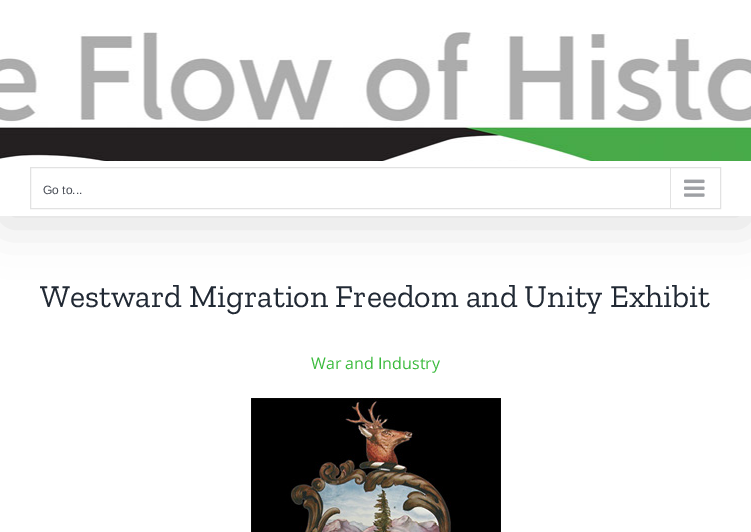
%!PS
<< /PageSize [751 532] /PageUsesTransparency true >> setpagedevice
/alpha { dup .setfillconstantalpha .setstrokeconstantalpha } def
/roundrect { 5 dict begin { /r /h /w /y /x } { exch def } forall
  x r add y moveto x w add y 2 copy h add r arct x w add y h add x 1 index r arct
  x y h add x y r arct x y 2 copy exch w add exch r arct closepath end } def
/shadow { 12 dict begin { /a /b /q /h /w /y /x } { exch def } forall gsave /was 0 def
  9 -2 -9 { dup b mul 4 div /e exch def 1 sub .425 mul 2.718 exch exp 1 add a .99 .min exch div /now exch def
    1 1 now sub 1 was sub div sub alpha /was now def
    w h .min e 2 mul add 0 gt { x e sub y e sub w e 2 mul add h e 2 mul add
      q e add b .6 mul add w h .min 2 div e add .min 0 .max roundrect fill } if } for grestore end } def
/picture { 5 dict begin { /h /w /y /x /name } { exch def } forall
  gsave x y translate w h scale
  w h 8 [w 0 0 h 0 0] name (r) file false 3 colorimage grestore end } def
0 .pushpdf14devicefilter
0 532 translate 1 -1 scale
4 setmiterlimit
1 setgray
0 0 751 532 rectfill
0 setgray
2 12 747 212 0 25 0.14 shadow
1 setgray
0 0 751 32 rectfill
(img1.rgb) 0 32 751 129 picture
0 161 751 55 rectfill
0.886 setgray
30.5 167.5 690 41 rectstroke
/LiberationSans-Regular [12 0 0 -12 0 0] selectfont
0.29 0.306 0.341 setrgbcolor
43 194 moveto (Go to...) show
0.886 setgray
670 168 1 40 rectfill
(img2.rgb) 684 179 21 18 picture
/ZillaSlab-Regular [32 0 0 -32 0 0] selectfont
0.129 0.161 0.204 setrgbcolor
40 307 moveto (Westward Migration Freedom and Unity Exhibit) show
/OpenSans-Regular [16 0 0 -16 0 0] selectfont
0.224 0.729 0.231 setrgbcolor
311 369 moveto (War and Industry) show
(img3.rgb) 251 398 250 134 picture
.poppdf14devicefilter showpage
